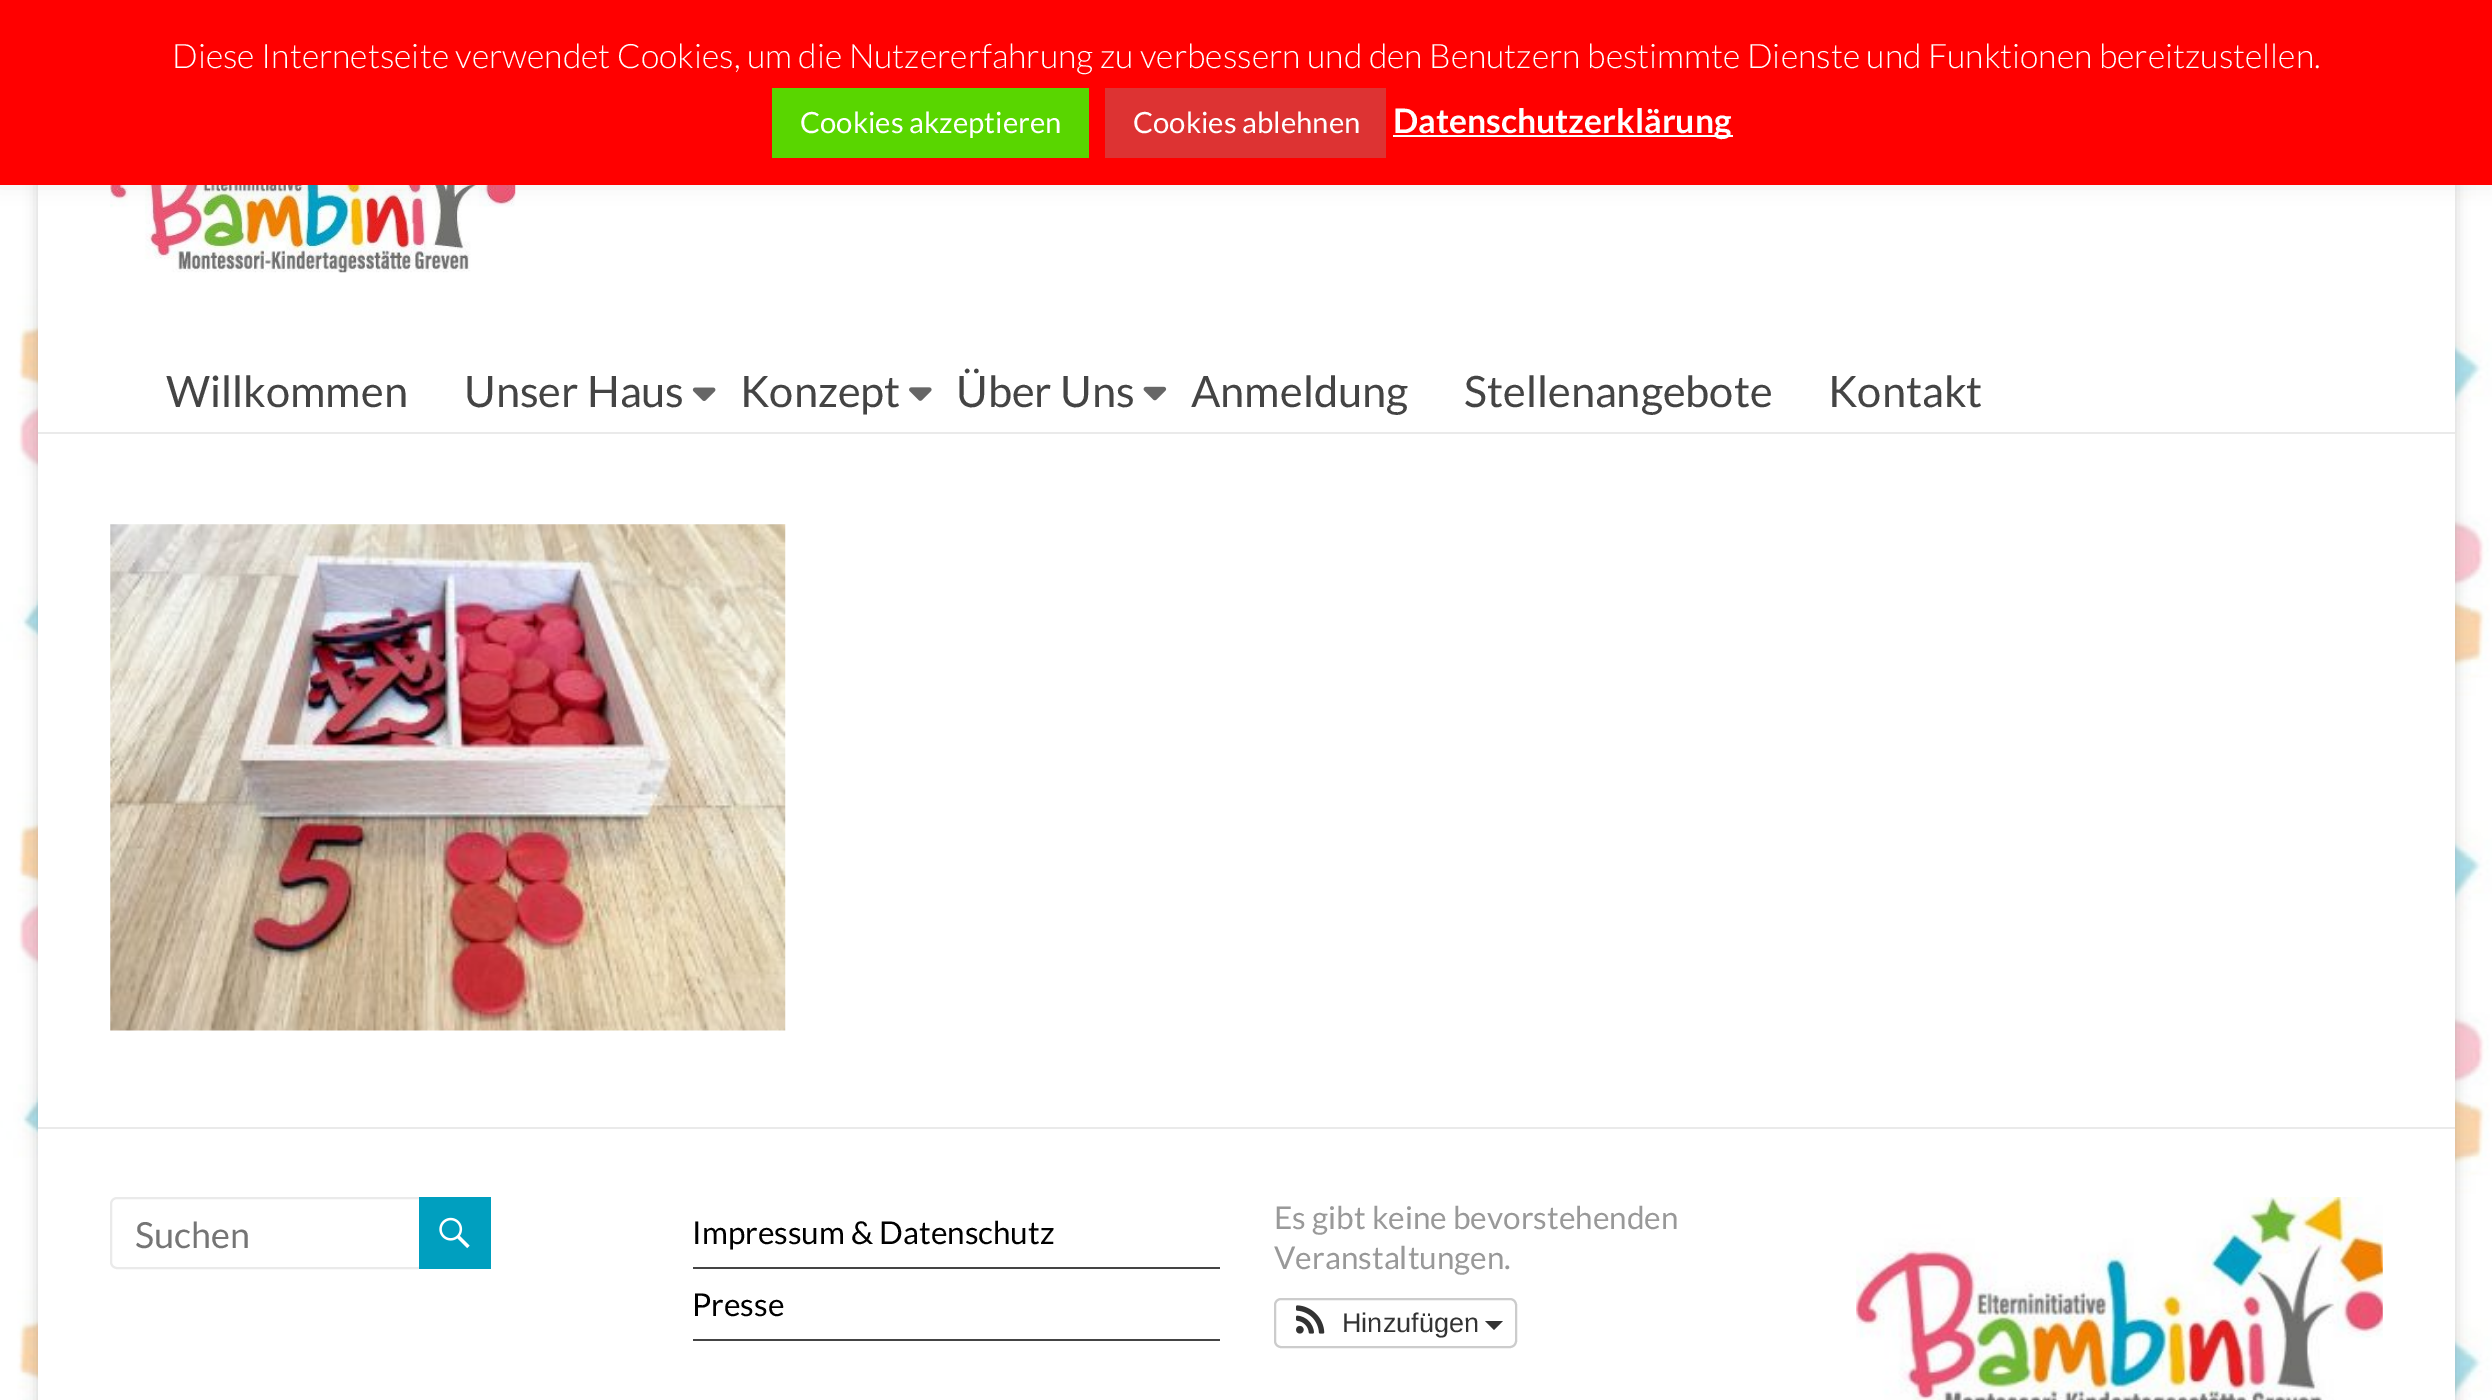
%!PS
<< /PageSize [2492 1400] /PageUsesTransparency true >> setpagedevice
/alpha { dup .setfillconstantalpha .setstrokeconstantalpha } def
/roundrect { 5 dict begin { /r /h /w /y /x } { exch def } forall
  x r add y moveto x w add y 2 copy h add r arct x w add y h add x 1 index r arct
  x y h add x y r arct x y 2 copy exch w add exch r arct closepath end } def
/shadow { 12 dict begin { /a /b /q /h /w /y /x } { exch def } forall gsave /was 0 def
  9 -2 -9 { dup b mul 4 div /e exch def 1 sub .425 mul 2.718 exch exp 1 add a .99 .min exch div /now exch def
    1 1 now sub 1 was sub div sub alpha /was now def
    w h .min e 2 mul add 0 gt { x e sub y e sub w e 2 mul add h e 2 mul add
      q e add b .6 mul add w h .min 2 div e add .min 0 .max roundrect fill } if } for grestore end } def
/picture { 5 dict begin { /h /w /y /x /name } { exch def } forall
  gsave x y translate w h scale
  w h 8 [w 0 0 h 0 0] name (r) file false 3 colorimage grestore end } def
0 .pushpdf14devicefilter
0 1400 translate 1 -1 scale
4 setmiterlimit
1 setgray
0 0 2492 1400 rectfill
(img1.rgb) 0 185 2492 1215 picture
0.392 setgray
38 72 2417 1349 0 7 0.3 shadow
1 setgray
38 185 2417 1215 rectfill
(img2.rgb) 110 185 406 88 picture
0.675 0.671 0.671 setrgbcolor
0 -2 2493 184 0 11 0.3 shadow
1 0 0 setrgbcolor
0 0 2492 185 rectfill
/Lato-Light [33.75 0 0 -33.75 0 0] selectfont
1 setgray
172 68 moveto (Diese Internetseite verwendet Cookies, um die Nutzererfahrung zu verbessern und den Benutzern bestimmte Dienste und Funktionen bereitzustellen.) show
0.349 0.839 0 setrgbcolor
772 88 317 70 rectfill
/Lato-Regular [29.25 0 0 -29.25 0 0] selectfont
1 setgray
800 133 moveto (Cookies akzeptieren) show
0.867 0.2 0.2 setrgbcolor
1105 88 281 70 rectfill
1 setgray
1133 133 moveto (Cookies ablehnen) show
1393 135 340 2 rectfill
/Lato-Bold [33.75 0 0 -33.75 0 0] selectfont
1393 133 moveto (Datenschutzerklärung) show
0.918 setgray
38 432 2417 2 rectfill
/Lato-Regular [43.25 0 0 -43.25 0 0] selectfont
0.267 setgray
166 407 moveto (Willkommen) show
464 407 moveto (Unser Haus) show
(img3.rgb) 692 387 24 14 picture
740 407 moveto (Konzept) show
(img4.rgb) 909 387 23 14 picture
956 407 moveto (Über Uns) show
(img5.rgb) 1143 386 24 15 picture
1191 407 moveto (Anmeldung) show
1464 407 moveto (Stellenangebote) show
1828 407 moveto (Kontakt) show
(img6.rgb) 110 524 676 507 picture
0.918 setgray
38 1127 2417 2 rectfill
2 setlinewidth
111 1198 313 70 6 roundrect stroke
/Lato-Regular [36 0 0 -36 0 0] selectfont
0.459 setgray
135 1248 moveto (Suchen) show
0 0.624 0.749 setrgbcolor
419 1197 72 72 rectfill
(img7.rgb) 439 1217 31 32 picture
0.267 setgray
693 1267 527 2 rectfill
/Lato-Regular [31.5 0 0 -31.5 0 0] selectfont
0 setgray
692 1244 moveto (Impressum & Datenschutz) show
0.267 setgray
693 1339 527 2 rectfill
0 setgray
692 1316 moveto (Presse) show
0.6 setgray
1274 1229 moveto (Es gibt keine bevorstehenden) show
1274 1269 moveto (Veranstaltungen.) show
0.8 setgray
1275 1299 241 48 6 roundrect stroke
(img8.rgb) 1296 1305 29 29 picture
/LiberationSans-Regular [27 0 0 -27 0 0] selectfont
0.2 setgray
1342 1332 moveto (Hinzufügen) show
newpath 1485 1321 moveto 1503 1321 lineto 1494 1330 lineto closepath fill
(img9.rgb) 1856 1197 527 203 picture
.poppdf14devicefilter showpage
